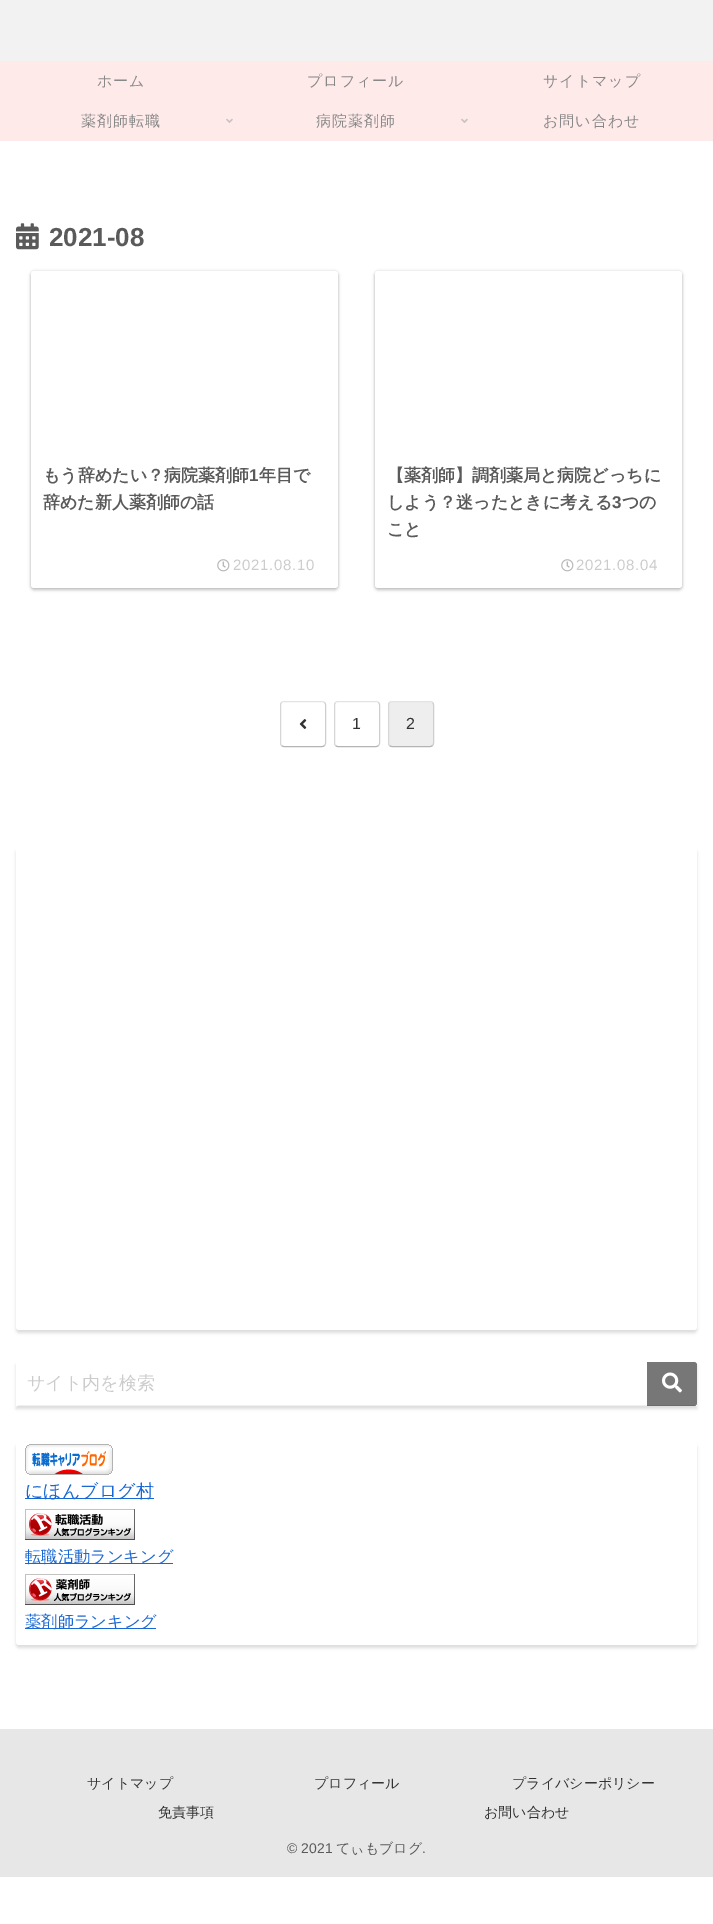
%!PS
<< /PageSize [713 1924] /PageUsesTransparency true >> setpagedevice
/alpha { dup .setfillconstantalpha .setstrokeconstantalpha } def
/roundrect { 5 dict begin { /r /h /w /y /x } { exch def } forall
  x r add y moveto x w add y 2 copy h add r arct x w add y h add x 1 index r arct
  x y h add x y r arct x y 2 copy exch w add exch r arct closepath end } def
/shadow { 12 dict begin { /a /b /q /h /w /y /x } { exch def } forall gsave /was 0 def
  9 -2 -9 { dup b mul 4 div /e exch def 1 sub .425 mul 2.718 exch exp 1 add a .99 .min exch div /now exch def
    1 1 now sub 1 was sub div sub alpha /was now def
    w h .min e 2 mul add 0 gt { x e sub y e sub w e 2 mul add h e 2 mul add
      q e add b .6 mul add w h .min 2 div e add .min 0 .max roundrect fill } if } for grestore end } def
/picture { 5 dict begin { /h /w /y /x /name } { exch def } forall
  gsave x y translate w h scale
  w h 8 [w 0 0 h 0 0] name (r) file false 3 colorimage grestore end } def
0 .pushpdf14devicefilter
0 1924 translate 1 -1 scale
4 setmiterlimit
1 setgray
0 0 713 1924 rectfill
0.949 setgray
0 0 713 61 rectfill
1 0.918 0.918 setrgbcolor
0 61 713 80 rectfill
/WenQuanYiZenHei-Medium [15 0 0 -15 0 0] selectfont
0.533 setgray
97 86 moveto 1 0 (ホーム) ashow
307 86 moveto 1 0 (プロフィール) ashow
543 86 moveto 1 0 (サイトマップ) ashow
81 126 moveto 1 0 (薬剤師転職) ashow
(img1.rgb) 226 118 7 5 picture
316 126 moveto 1 0 (病院薬剤師) ashow
(img1.rgb) 461 118 7 5 picture
543 126 moveto 1 0 (お問い合わせ) ashow
(img2.rgb) 16 223 23 27 picture
/LiberationSans-Bold [26 0 0 -26 0 0] selectfont
0.353 setgray
49 246 moveto (2021-08) show
0 setgray
31 273 307 317 3 1.5 0.2 shadow
31 271 307 317 3 1.5 0.12 shadow
1 setgray
31 271 307 317 3 roundrect fill
/WenQuanYiZenHei-Bold [17 0 0 -17 0 0] selectfont
0.353 setgray
43 481 moveto (もう辞めたい？病院薬剤師) show
/LiberationSans-Bold [17 0 0 -17 0 0] selectfont
249 481 moveto (1) show
/WenQuanYiZenHei-Bold [17 0 0 -17 0 0] selectfont
259 481 moveto (年目で) show
43 508 moveto (辞めた新人薬剤師の話) show
(img3.rgb) 217 559 13 13 picture
/LiberationSans-Regular [15 0 0 -15 0 0] selectfont
0.8 setgray
233 570 moveto 0.75 0 (2021.08.10) ashow
0 setgray
375 273 307 317 3 1.5 0.2 shadow
375 271 307 317 3 1.5 0.12 shadow
1 setgray
375 271 307 317 3 roundrect fill
/WenQuanYiZenHei-Bold [17 0 0 -17 0 0] selectfont
0.353 setgray
387 481 moveto (【薬剤師】調剤薬局と病院どっちに) show
387 508 moveto (しよう？迷ったときに考える) show
/LiberationSans-Bold [17 0 0 -17 0 0] selectfont
612 508 moveto (3) show
/WenQuanYiZenHei-Bold [17 0 0 -17 0 0] selectfont
622 508 moveto (つの) show
387 535 moveto (こと) show
(img3.rgb) 561 559 13 13 picture
/LiberationSans-Regular [15 0 0 -15 0 0] selectfont
0.8 setgray
576 570 moveto 0.75 0 (2021.08.04) ashow
0.89 setgray
newpath 281.5 702.5 moveto 282 702 283 701.5 284 701.5 curveto 322 701.5 lineto 323 701.5 324 702 324.5 702.5 curveto stroke
0.808 setgray
newpath 324.5 702.5 moveto 325 703 325.5 704 325.5 705 curveto 325.5 743 lineto 325.5 744 325 745 324.5 745.5 curveto stroke
0.706 setgray
newpath 324.5 745.5 moveto 324 746 323 746.5 322 746.5 curveto 284 746.5 lineto 283 746.5 282 746 281.5 745.5 curveto stroke
0.839 setgray
newpath 281.5 745.5 moveto 281 745 280.5 744 280.5 743 curveto 280.5 705 lineto 280.5 704 281 703 281.5 702.5 curveto stroke
(img4.rgb) 299 719 8 10 picture
0.89 setgray
newpath 335.5 702.5 moveto 336 702 337 701.5 338 701.5 curveto 376 701.5 lineto 377 701.5 378 702 378.5 702.5 curveto stroke
0.808 setgray
newpath 378.5 702.5 moveto 379 703 379.5 704 379.5 705 curveto 379.5 743 lineto 379.5 744 379 745 378.5 745.5 curveto stroke
0.706 setgray
newpath 378.5 745.5 moveto 378 746 377 746.5 376 746.5 curveto 338 746.5 lineto 337 746.5 336 746 335.5 745.5 curveto stroke
0.839 setgray
newpath 335.5 745.5 moveto 335 745 334.5 744 334.5 743 curveto 334.5 705 lineto 334.5 704 335 703 335.5 702.5 curveto stroke
/LiberationSans-Regular [16 0 0 -16 0 0] selectfont
0.2 setgray
352 729 moveto (1) show
0.933 setgray
388 701 46 46 4 roundrect fill
0.89 setgray
newpath 389.5 702.5 moveto 390 702 391 701.5 392 701.5 curveto 430 701.5 lineto 431 701.5 432 702 432.5 702.5 curveto stroke
0.808 setgray
newpath 432.5 702.5 moveto 433 703 433.5 704 433.5 705 curveto 433.5 743 lineto 433.5 744 433 745 432.5 745.5 curveto stroke
0.706 setgray
newpath 432.5 745.5 moveto 432 746 431 746.5 430 746.5 curveto 392 746.5 lineto 391 746.5 390 746 389.5 745.5 curveto stroke
0.839 setgray
newpath 389.5 745.5 moveto 389 745 388.5 744 388.5 743 curveto 388.5 705 lineto 388.5 704 389 703 389.5 702.5 curveto stroke
0.2 setgray
406 729 moveto (2) show
0 setgray
16 850 681 483 3 1.5 0.12 shadow
1 setgray
16 847 681 483 3 roundrect fill
gsave
newpath 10 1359 moveto 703 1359 lineto 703 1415 lineto 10 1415 lineto closepath 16 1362 moveto 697 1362 lineto 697 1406 lineto 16 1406 lineto closepath eoclip newpath
0 setgray
16 1365 681 44 0 1.5 0.12 shadow
grestore
0.937 setgray
18 1405 677 1 rectfill
/WenQuanYiZenHei-Medium [18 0 0 -18 0 0] selectfont
0.8 setgray
27 1389 moveto (サイト内を検索) show
0.467 setgray
newpath 647 1362 moveto 694 1362 lineto 695.5 1362 697 1363.5 697 1365 curveto 697 1403 lineto 697 1404.5 695.5 1406 694 1406 curveto 647 1406 lineto closepath fill
0.1 alpha
0 setgray
647 1405 49 1 rectfill
1 alpha
(img5.rgb) 662 1372 20 21 picture
16 1445 681 203 3 1.5 0.12 shadow
1 setgray
16 1442 681 203 3 roundrect fill
(img6.rgb) 25 1444 88 31 picture
0.098 0.404 0.824 setrgbcolor
25 1498 129 1 rectfill
25 1497 moveto (にほんブログ村) show
(img7.rgb) 25 1509 110 31 picture
25 1563 148 1 rectfill
/WenQuanYiZenHei-Medium [16.25 0 0 -16.25 0 0] selectfont
25 1562 moveto (転職活動ランキング) show
(img8.rgb) 25 1574 110 31 picture
25 1628 131 1 rectfill
25 1627 moveto (薬剤師ランキング) show
0.906 setgray
0 1729 713 148 rectfill
/WenQuanYiZenHei-Medium [14 0 0 -14 0 0] selectfont
0.2 setgray
87 1788 moveto (サイトマップ) show
314 1788 moveto (プロフィール) show
512 1788 moveto (プライバシーポリシー) show
158 1817 moveto (免責事項) show
484 1817 moveto (お問い合わせ) show
/LiberationSans-Regular [14 0 0 -14 0 0] selectfont
0.353 setgray
287 1853 moveto (© 2021) show
/WenQuanYiZenHei-Medium [14 0 0 -14 0 0] selectfont
336 1853 moveto (てぃもブログ) show
/LiberationSans-Regular [14 0 0 -14 0 0] selectfont
422 1853 moveto (.) show
.poppdf14devicefilter showpage
